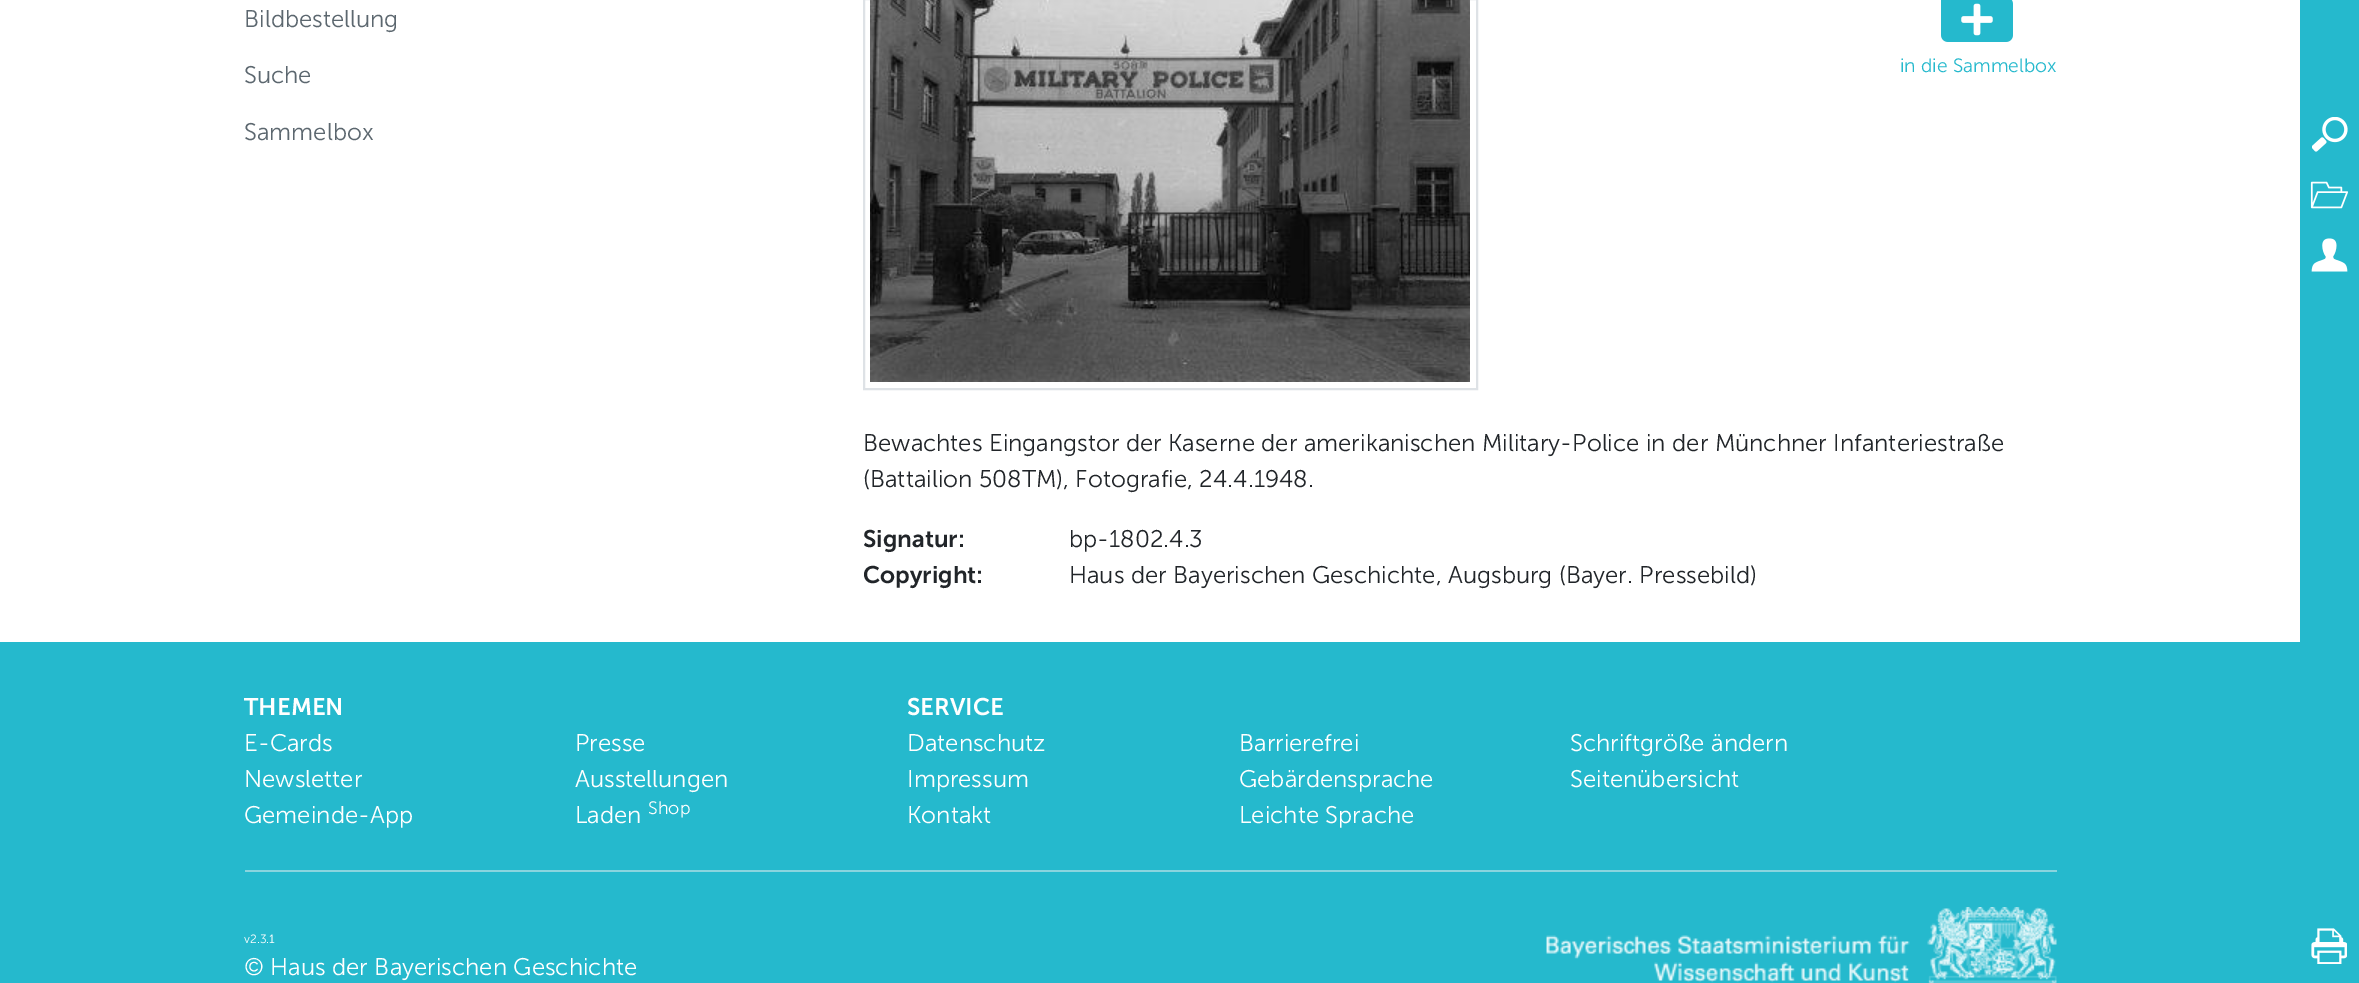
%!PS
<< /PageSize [2359 983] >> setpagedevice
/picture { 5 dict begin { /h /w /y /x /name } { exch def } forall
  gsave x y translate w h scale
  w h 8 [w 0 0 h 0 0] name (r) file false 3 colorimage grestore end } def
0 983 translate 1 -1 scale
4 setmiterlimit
1 setgray
0 0 2359 983 rectfill
/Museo-Light [24 0 0 -24 0 0] selectfont
0.361 0.404 0.435 setrgbcolor
244 27 moveto (Bildbestellung) show
244 83 moveto (Suche) show
244 140 moveto (Sammelbox) show
0.871 0.886 0.902 setrgbcolor
2 setlinewidth
864 -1 613 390 rectstroke
(img1.rgb) 870 0 600 382 picture
(img2.rgb) 1941 0 72 42 picture
/Museo-Light [19.25 0 0 -19.25 0 0] selectfont
0.145 0.725 0.804 setrgbcolor
1900 72 moveto (in die Sammelbox) show
/Museo-Light [24 0 0 -24 0 0] selectfont
0.129 0.145 0.161 setrgbcolor
863 451 moveto (Bewachtes Eingangstor der Kaserne der amerikanischen Military-Police in der Münchner Infanteriestraße) show
863 487 moveto (\(Battailion 508TM\), Fotografie, 24.4.1948.) show
/MuseoSans-SemiBold [24 0 0 -24 0 0] selectfont
863 547 moveto (Signatur:) show
/Museo-Light [24 0 0 -24 0 0] selectfont
1069 547 moveto (bp-1802.4.3) show
/MuseoSans-SemiBold [24 0 0 -24 0 0] selectfont
863 583 moveto (Copyright:) show
/Museo-Light [24 0 0 -24 0 0] selectfont
1069 583 moveto (Haus der Bayerischen Geschichte, Augsburg \(Bayer. Pressebild\)) show
0.145 0.725 0.804 setrgbcolor
2300 0 59 983 rectfill
(img3.rgb) 2312 117 36 35 picture
(img4.rgb) 2310 181 38 28 picture
(img5.rgb) 2311 238 37 34 picture
(img6.rgb) 2311 928 36 36 picture
0 642 2300 341 rectfill
/MuseoSans-SemiBold [24 0 0 -24 0 0] selectfont
1 setgray
244 715 moveto (THEMEN) show
/Museo-Light [24 0 0 -24 0 0] selectfont
244 751 moveto (E-Cards) show
244 787 moveto (Newsletter) show
244 823 moveto (Gemeinde-App) show
575 751 moveto (Presse) show
575 787 moveto (Ausstellungen) show
575 823 moveto (Laden) show
/Museo-Light [18 0 0 -18 0 0] selectfont
648 814 moveto (Shop) show
/MuseoSans-SemiBold [24 0 0 -24 0 0] selectfont
907 715 moveto (SERVICE) show
/Museo-Light [24 0 0 -24 0 0] selectfont
907 751 moveto (Datenschutz) show
907 787 moveto (Impressum) show
907 823 moveto (Kontakt) show
1239 751 moveto (Barrierefrei) show
1239 787 moveto (Gebärdensprache) show
1239 823 moveto (Leichte Sprache) show
1570 751 moveto (Schriftgröße ändern) show
1570 787 moveto (Seitenübersicht) show
0.541 0.831 0.871 setrgbcolor
245 870 1812 2 rectfill
/Museo-Light [12 0 0 -12 0 0] selectfont
1 setgray
244 943 moveto (v2.3.1) show
/Museo-Light [24 0 0 -24 0 0] selectfont
244 975 moveto (© Haus der Bayerischen Geschichte) show
(img7.rgb) 1546 907 511 76 picture
showpage
